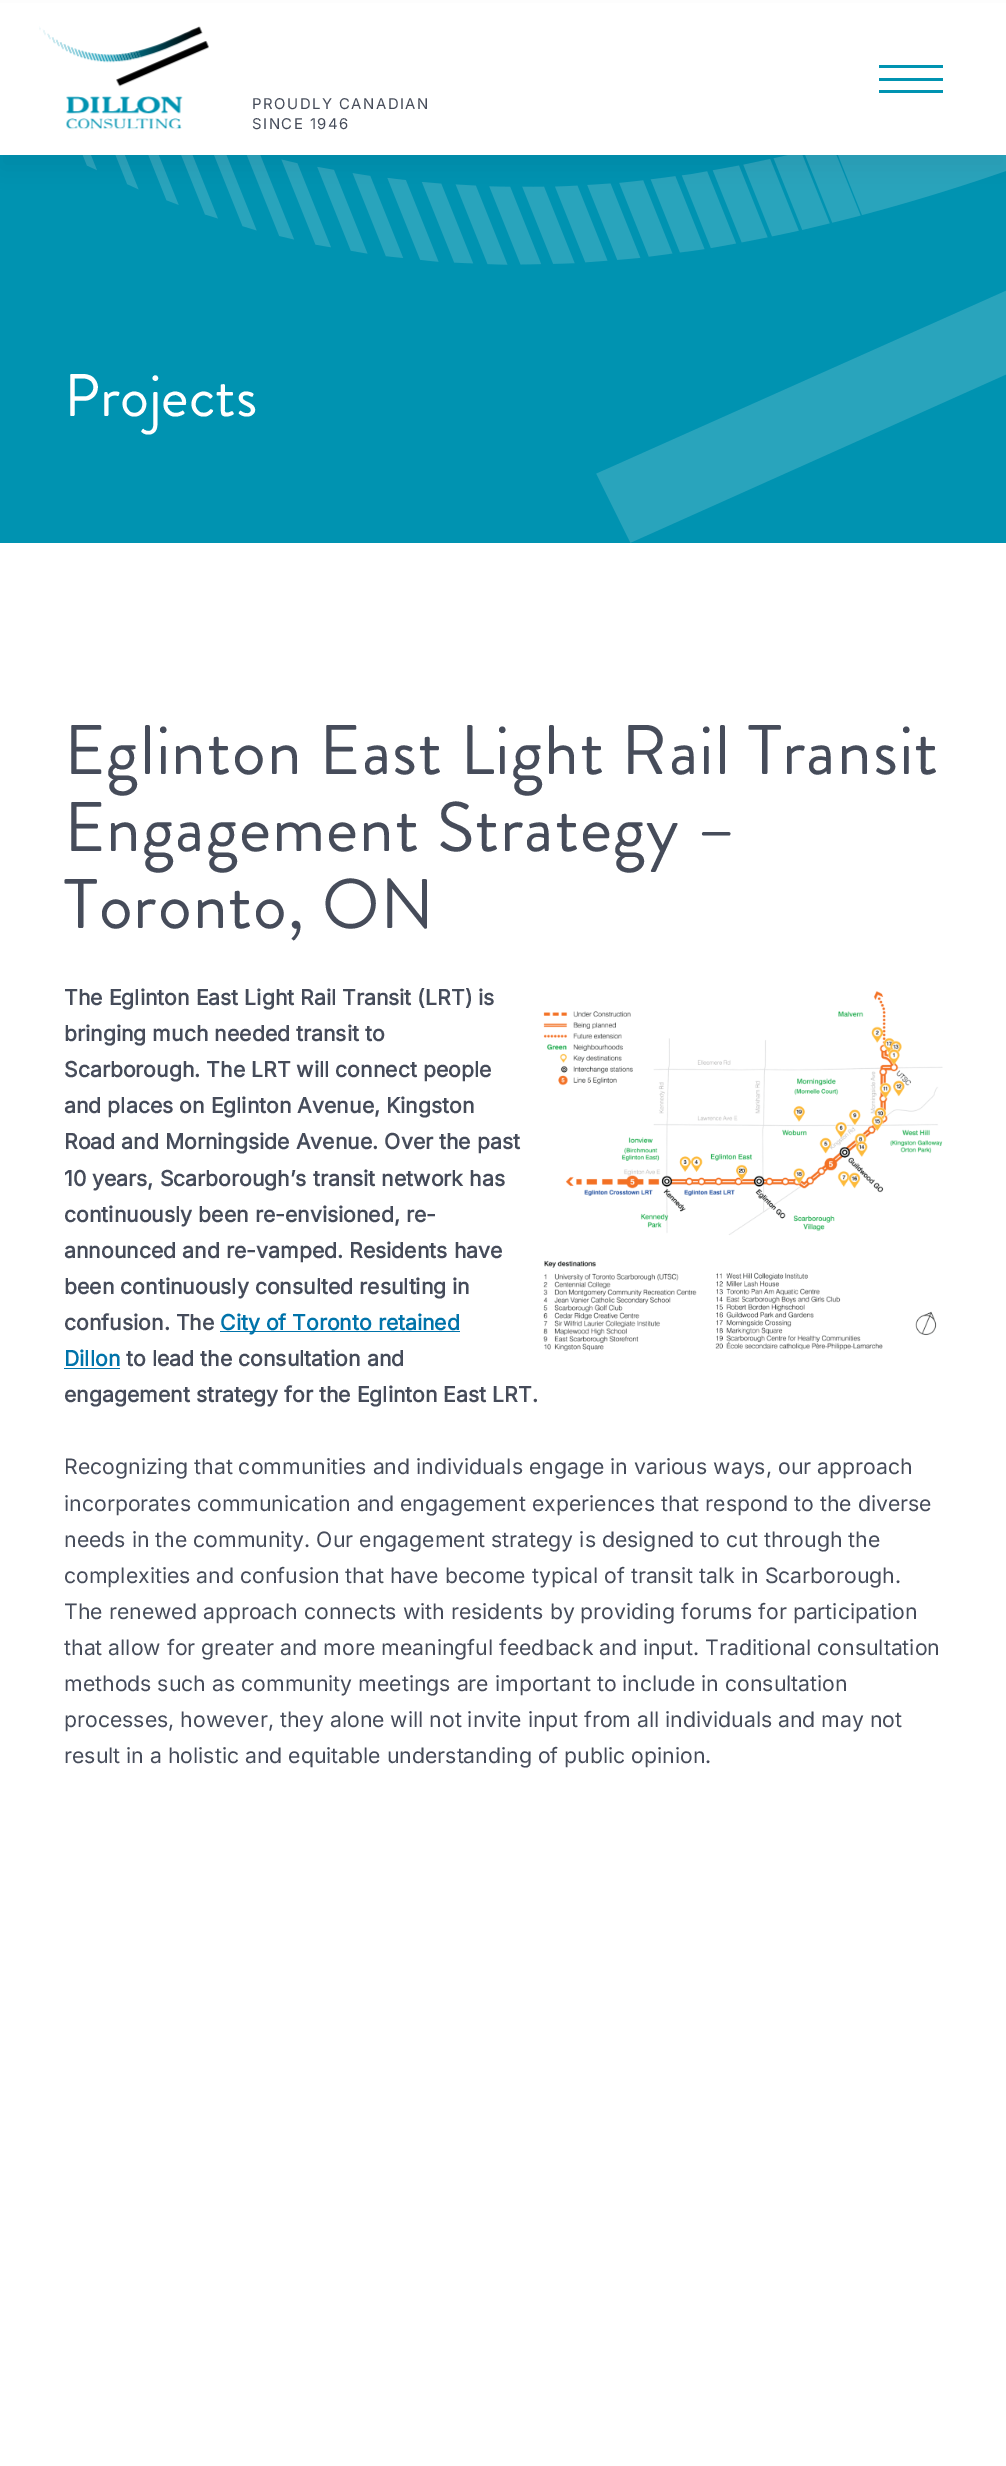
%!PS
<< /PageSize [1006 2466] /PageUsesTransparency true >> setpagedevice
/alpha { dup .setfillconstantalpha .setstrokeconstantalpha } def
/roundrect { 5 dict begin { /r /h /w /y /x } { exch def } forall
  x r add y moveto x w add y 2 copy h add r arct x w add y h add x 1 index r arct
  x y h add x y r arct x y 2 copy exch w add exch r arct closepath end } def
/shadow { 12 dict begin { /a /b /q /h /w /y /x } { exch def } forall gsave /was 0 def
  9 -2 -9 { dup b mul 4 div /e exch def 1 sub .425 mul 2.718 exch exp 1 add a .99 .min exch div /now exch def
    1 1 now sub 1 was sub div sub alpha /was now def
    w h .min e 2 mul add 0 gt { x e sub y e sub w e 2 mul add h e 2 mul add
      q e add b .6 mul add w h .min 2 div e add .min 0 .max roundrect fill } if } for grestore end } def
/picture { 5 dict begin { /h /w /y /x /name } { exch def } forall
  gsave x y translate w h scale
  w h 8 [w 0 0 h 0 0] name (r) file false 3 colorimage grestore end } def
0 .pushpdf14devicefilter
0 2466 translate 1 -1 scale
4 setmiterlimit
1 setgray
0 0 1006 2466 rectfill
0 0.576 0.694 setrgbcolor
0 155 1006 388 rectfill
(img2.rgb) 82 155 924 388 picture
0 setgray
0 13 1006 155 0 12.5 0.05 shadow
1 setgray
0 3 1006 152 rectfill
(img1.rgb) 39 26 170 104 picture
0 0.576 0.694 setrgbcolor
879 65 64 3 rectfill
879 78 64 3 rectfill
879 90 64 3 rectfill
/Inter-Regular [14.9 0 0 -14.9 0 0] selectfont
0.275 0.298 0.353 setrgbcolor
252 109 moveto 1.5 0 (PROUDLY CANADIAN) ashow
252 129 moveto 1.5 0 (SINCE 1946) ashow
/BrandonGrotesque-Regular [60 0 0 -60 0 0] selectfont
1 setgray
64 416 moveto (Projects) show
/BrandonGrotesque-Regular [70 0 0 -70 0 0] selectfont
0.275 0.298 0.353 setrgbcolor
64 774 moveto 1.05 0 (Eglinton East Light Rail Transit) ashow
64 851 moveto 1.05 0 (Engagement Strategy –) ashow
64 928 moveto 1.05 0 (Toronto, ON) ashow
/Inter-Bold [21.25 0 0 -21.25 0 0] selectfont
64 1005 moveto (The Eglinton East Light Rail Transit \(LRT\) is) show
64 1041 moveto (bringing much needed transit to) show
64 1077 moveto (Scarborough. The LRT will connect people) show
64 1113 moveto (and places on Eglinton Avenue, Kingston) show
64 1149 moveto (Road and Morningside Avenue. Over the past) show
64 1186 moveto (10 years, Scarborough’s transit network has) show
64 1222 moveto (continuously been re-envisioned, re-) show
64 1258 moveto (announced and re-vamped. Residents have) show
64 1294 moveto (been continuously consulted resulting in) show
64 1330 moveto (confusion. The) show
0 0.451 0.667 setrgbcolor
220 1331 240 1 rectfill
220 1330 moveto (City of Toronto retained) show
64 1366 moveto (Dillon) show
64 1368 56 1 rectfill
0.275 0.298 0.353 setrgbcolor
126 1366 moveto (to lead the consultation and) show
64 1402 moveto (engagement strategy for the Eglinton East LRT.) show
(img3.rgb) 543 991 400 360 picture
/Inter-Regular [21.25 0 0 -21.25 0 0] selectfont
64 1474 moveto (Recognizing that communities and individuals engage in various ways, our approach) show
64 1511 moveto (incorporates communication and engagement experiences that respond to the diverse) show
64 1547 moveto (needs in the community. Our engagement strategy is designed to cut through the) show
64 1583 moveto (complexities and confusion that have become typical of transit talk in Scarborough.) show
64 1619 moveto (The renewed approach connects with residents by providing forums for participation) show
64 1655 moveto (that allow for greater and more meaningful feedback and input. Traditional consultation) show
64 1691 moveto (methods such as community meetings are important to include in consultation) show
64 1727 moveto (processes, however, they alone will not invite input from all individuals and may not) show
64 1763 moveto (result in a holistic and equitable understanding of public opinion.) show
.poppdf14devicefilter showpage
